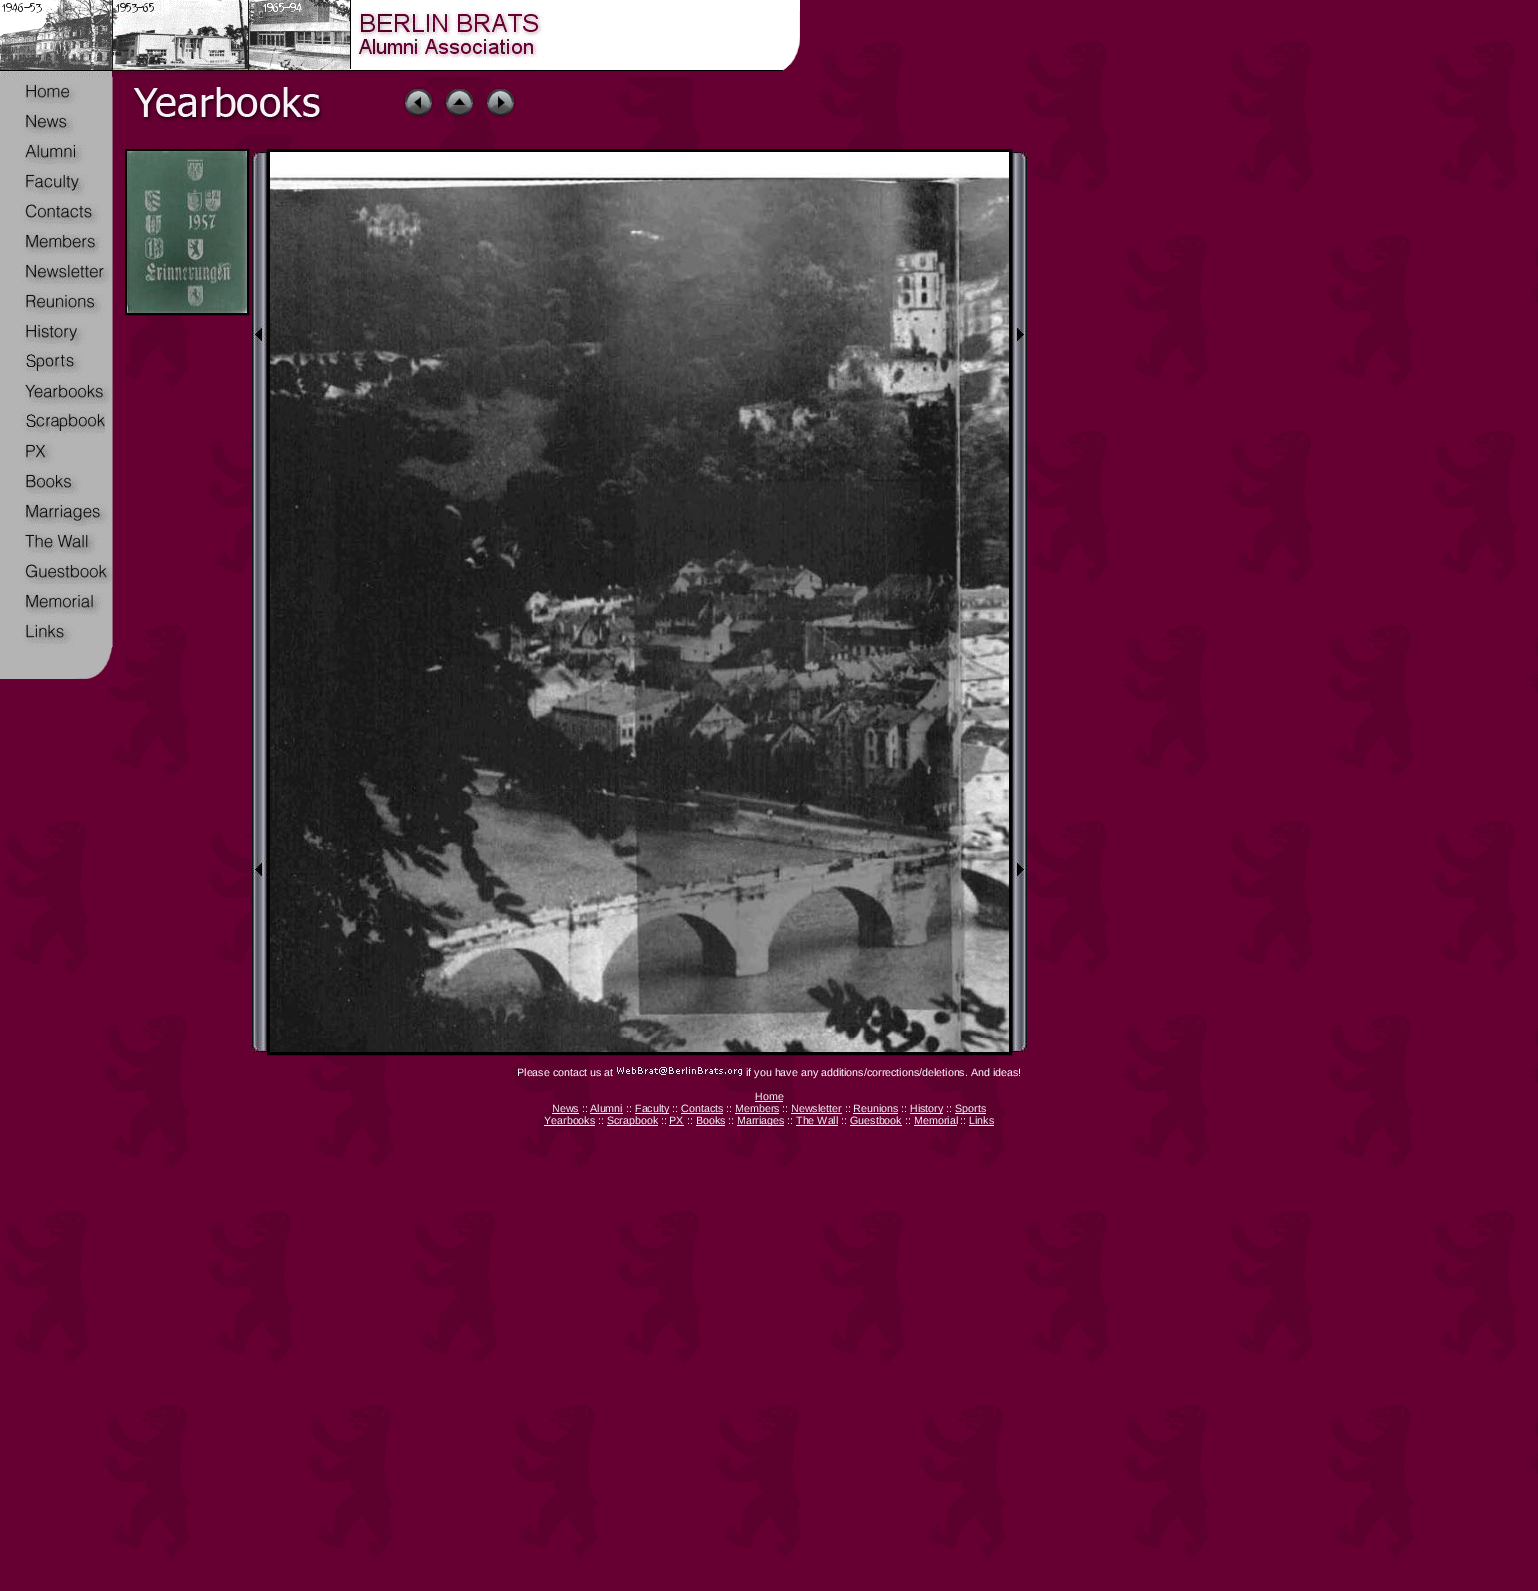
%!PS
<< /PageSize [1538 1591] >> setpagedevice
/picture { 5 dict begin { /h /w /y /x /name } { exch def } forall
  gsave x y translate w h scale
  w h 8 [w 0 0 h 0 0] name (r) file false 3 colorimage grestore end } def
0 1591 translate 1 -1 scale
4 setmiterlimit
0.4 0 0.196 setrgbcolor
0 0 1538 1591 rectfill
(img1.rgb) 3 41 1535 1516 picture
(img2.rgb) 0 0 400 77 picture
(img3.rgb) 400 0 400 77 picture
(img4.rgb) 0 77 113 30 picture
(img5.rgb) 0 107 113 30 picture
(img6.rgb) 0 137 113 30 picture
(img7.rgb) 0 167 113 30 picture
(img8.rgb) 0 197 113 30 picture
(img9.rgb) 0 227 120 30 picture
(img10.rgb) 0 257 125 30 picture
(img11.rgb) 0 287 125 30 picture
(img12.rgb) 0 317 113 30 picture
(img13.rgb) 0 347 125 30 picture
(img14.rgb) 0 377 113 30 picture
(img15.rgb) 0 407 113 30 picture
(img16.rgb) 0 437 113 30 picture
(img17.rgb) 0 467 113 30 picture
(img18.rgb) 0 497 113 30 picture
(img19.rgb) 0 527 113 30 picture
(img20.rgb) 0 557 113 30 picture
(img21.rgb) 0 587 113 30 picture
(img22.rgb) 0 617 120 30 picture
(img23.rgb) 0 647 125 40 picture
(img24.rgb) 133 77 190 58 picture
(img25.rgb) 403 87 31 31 picture
(img26.rgb) 444 87 31 31 picture
(img27.rgb) 485 87 31 31 picture
0 setgray
2 setlinewidth
126 150 122 164 rectstroke
(img28.rgb) 127 151 120 162 picture
(img29.rgb) 252 152 15 900 picture
3 setlinewidth
268.5 150.5 742 903 rectstroke
(img30.rgb) 270 152 739 900 picture
(img31.rgb) 1012 152 15 900 picture
/LiberationSans-Regular [10.7 0 0 -10.7 0 0] selectfont
1 setgray
517 1076 moveto (Please contact us at) show
(img32.rgb) 616 1067 127 9 picture
746 1076 moveto (if you have any additions/corrections/deletions. And ideas!) show
0.961 setgray
755 1100 moveto (Home) show
755 1101 28 1 rectfill
552 1112 moveto (News) show
552 1113 27 1 rectfill
1 setgray
582 1112 moveto (::) show
0.961 setgray
590 1112 moveto (Alumni) show
590 1113 33 1 rectfill
1 setgray
626 1112 moveto (::) show
0.961 setgray
635 1113 34 1 rectfill
635 1112 moveto (Faculty) show
1 setgray
672 1112 moveto (::) show
0.961 setgray
681 1112 moveto (Contacts) show
681 1113 42 1 rectfill
1 setgray
726 1112 moveto (::) show
0.961 setgray
735 1112 moveto (Members) show
735 1113 44 1 rectfill
1 setgray
782 1112 moveto (::) show
0.961 setgray
791 1112 moveto (Newsletter) show
791 1113 51 1 rectfill
1 setgray
845 1112 moveto (::) show
0.961 setgray
853 1112 moveto (Reunions) show
853 1113 45 1 rectfill
1 setgray
901 1112 moveto (::) show
0.961 setgray
910 1113 33 1 rectfill
910 1112 moveto (History) show
1 setgray
946 1112 moveto (::) show
0.961 setgray
955 1113 31 1 rectfill
955 1112 moveto (Sports) show
544 1124 moveto (Yearbooks) show
544 1125 51 1 rectfill
1 setgray
598 1124 moveto (::) show
0.961 setgray
607 1125 51 1 rectfill
607 1124 moveto (Scrapbook) show
1 setgray
661 1124 moveto (::) show
0.961 setgray
669 1124 moveto (PX) show
669 1125 15 1 rectfill
1 setgray
687 1124 moveto (::) show
0.961 setgray
696 1124 moveto (Books) show
696 1125 29 1 rectfill
1 setgray
728 1124 moveto (::) show
0.961 setgray
737 1125 47 1 rectfill
737 1124 moveto (Marriages) show
1 setgray
787 1124 moveto (::) show
0.961 setgray
796 1124 moveto (The Wall) show
796 1125 42 1 rectfill
1 setgray
841 1124 moveto (::) show
0.961 setgray
850 1124 moveto (Guestbook) show
850 1125 52 1 rectfill
1 setgray
905 1124 moveto (::) show
0.961 setgray
914 1124 moveto (Memorial) show
914 1125 43 1 rectfill
1 setgray
960 1124 moveto (::) show
0.961 setgray
969 1124 moveto (Links) show
969 1125 25 1 rectfill
showpage
